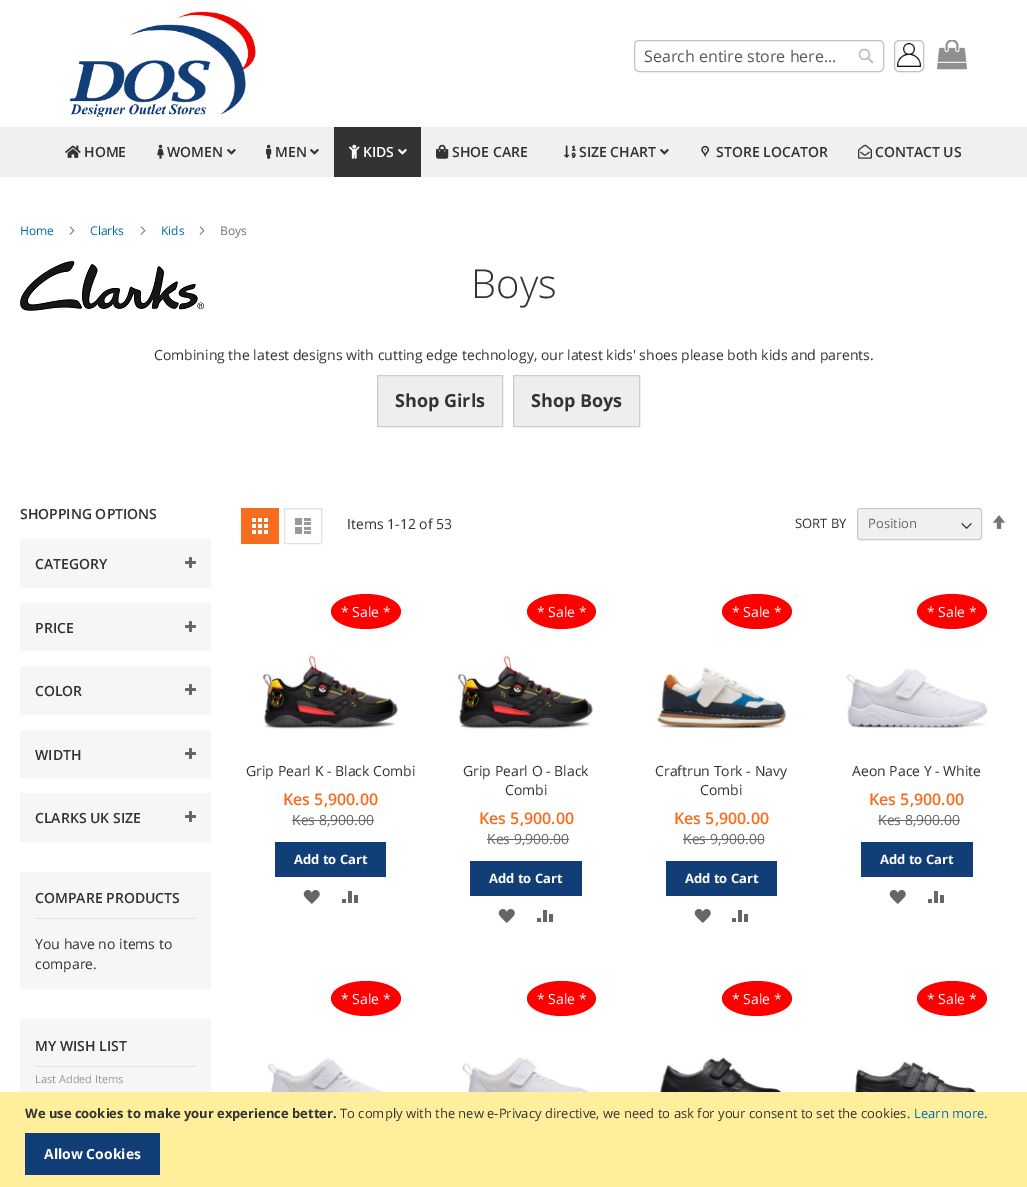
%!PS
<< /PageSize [1027 1187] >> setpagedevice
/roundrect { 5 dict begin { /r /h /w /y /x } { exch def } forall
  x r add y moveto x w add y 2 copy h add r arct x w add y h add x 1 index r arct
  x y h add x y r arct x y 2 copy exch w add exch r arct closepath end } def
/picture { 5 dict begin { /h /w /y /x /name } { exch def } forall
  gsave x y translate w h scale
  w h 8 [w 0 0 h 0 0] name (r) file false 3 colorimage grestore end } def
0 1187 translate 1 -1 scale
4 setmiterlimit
1 setgray
0 0 1027 1187 rectfill
(img1.rgb) 69 11 187 106 picture
0.761 setgray
634.5 40.5 249 31 4.5 roundrect stroke
/OpenSans-Regular [16 0 0 -16 0 0] selectfont
0.341 setgray
644 62 moveto (Search entire store here...) show
(img2.rgb) 858 48 16 16 picture
0.761 setgray
894.5 40.5 29 31 4.5 roundrect stroke
(img3.rgb) 897 43 24 24 picture
(img4.rgb) 937 40 30 30 picture
0.941 setgray
0 127 1027 50 rectfill
(img5.rgb) 65 145 16 13 picture
/OpenSans-SemiBold [14 0 0 -14 0 0] selectfont
0.2 setgray
84 157 moveto (HOME) show
(img6.rgb) 157 144 7 15 picture
167 157 moveto (WOMEN) show
(img7.rgb) 227 149 9 6 picture
(img8.rgb) 266 144 6 15 picture
275 157 moveto (MEN) show
(img7.rgb) 310 149 9 6 picture
334 127 87 50 rectfill
(img9.rgb) 349 144 11 15 picture
1 setgray
363 157 moveto (KIDS) show
(img10.rgb) 398 149 9 6 picture
(img11.rgb) 436 144 13 15 picture
0.2 setgray
452 157 moveto (SHOE CARE) show
(img12.rgb) 564 145 12 13 picture
579 157 moveto (SIZE CHART) show
(img7.rgb) 660 149 9 6 picture
(img13.rgb) 701 145 9 13 picture
716 157 moveto (STORE LOCATOR) show
(img14.rgb) 858 144 14 15 picture
875 157 moveto (CONTACT US) show
/OpenSans-Regular [12 0 0 -12 0 0] selectfont
0 0.42 0.706 setrgbcolor
20 235 moveto (Home) show
(img15.rgb) 69 226 6 9 picture
90 235 moveto (Clarks) show
(img15.rgb) 140 226 6 9 picture
161 235 moveto (Kids) show
(img15.rgb) 199 226 6 9 picture
0.439 setgray
220 235 moveto (Boys) show
(img16.rgb) 20 261 184 50 picture
/OpenSans-Light [40 0 0 -40 0 0] selectfont
0.2 setgray
471 298 moveto (Boys) show
/OpenSans-Regular [14 0 0 -14 0 0] selectfont
154 360 moveto (Combining the latest designs with cutting edge technology, our latest kids' shoes please both kids and parents.) show
0.933 setgray
newpath 377.5 375.5 moveto 502.5 375.5 lineto 502.5 426.5 lineto 377.5 426.5 lineto closepath gsave fill grestore
0.8 setgray
stroke
/OpenSans-Bold [18 0 0 -18 0 0] selectfont
0.2 setgray
395 407 moveto (Shop Girls) show
0.933 setgray
newpath 513.5 375.5 moveto 639.5 375.5 lineto 639.5 426.5 lineto 513.5 426.5 lineto closepath gsave fill grestore
0.8 setgray
stroke
0.2 setgray
531 407 moveto (Shop Boys) show
/OpenSans-SemiBold [14 0 0 -14 0 0] selectfont
20 519 moveto (SHOPPING OPTIONS) show
0.965 setgray
20 539 191 49 rectfill
0.2 setgray
35 569 moveto (CATEGORY) show
(img17.rgb) 185 557 11 11 picture
0.965 setgray
20 603 191 48 rectfill
0.2 setgray
35 633 moveto (PRICE) show
(img17.rgb) 185 621 11 11 picture
0.965 setgray
20 666 191 49 rectfill
0.2 setgray
35 696 moveto (COLOR) show
(img17.rgb) 185 684 11 11 picture
0.965 setgray
20 730 191 48 rectfill
0.2 setgray
35 760 moveto (WIDTH) show
(img17.rgb) 185 748 11 11 picture
0.965 setgray
20 793 191 49 rectfill
0.2 setgray
35 823 moveto (CLARKS UK SIZE) show
(img17.rgb) 185 811 11 11 picture
0.965 0.427 0.122 setrgbcolor
241 508 38 36 rectfill
(img18.rgb) 252 518 16 16 picture
0.882 setgray
284.5 508.5 37 35 rectstroke
(img19.rgb) 295 518 16 16 picture
/OpenSans-Regular [14 0 0 -14 0 0] selectfont
0.2 setgray
347 529 moveto (Items 1-12 of 53) show
/OpenSans-Regular [13 0 0 -13 0 0] selectfont
795 528 moveto (SORT BY) show
0.941 setgray
858 509 123 30 2 roundrect fill
(img20.rgb) 961 523 11 6 picture
0.8 setgray
857.5 508.5 124 31 2.5 roundrect stroke
0.4 setgray
868 528 moveto (Position) show
(img21.rgb) 992 515 14 14 picture
1 0 0 setrgbcolor
newpath 366 594 moveto 385.5 594 401 602 401 611.5 curveto 401 621 385.5 629 366 629 curveto 346.5 629 331 621 331 611.5 curveto 331 602 346.5 594 366 594 curveto closepath fill
/OpenSans-Regular [14 0 0 -14 0 0] selectfont
1 setgray
341 617 moveto (* Sale *) show
(img22.rgb) 262 652 136 77 picture
0.2 setgray
246 776 moveto (Grip Pearl K - Black Combi) show
/OpenSans-SemiBold [16 0 0 -16 0 0] selectfont
0.965 0.427 0.122 setrgbcolor
283 805 moveto (Kes 5,900.00) show
/OpenSans-Regular [14 0 0 -14 0 0] selectfont
0.4 setgray
292 825 moveto (Kes 8,900.00) show
292 820 82 1 rectfill
0.071 0.243 0.467 setrgbcolor
275 842 111 35 rectfill
/OpenSans-Bold [13 0 0 -13 0 0] selectfont
1 setgray
294 864 moveto (Add to Cart) show
(img23.rgb) 303 890 17 14 picture
(img24.rgb) 342 891 16 12 picture
1 0 0 setrgbcolor
newpath 561.5 594 moveto 580.5 594 596 602 596 611.5 curveto 596 621 580.5 629 561.5 629 curveto 542.5 629 527 621 527 611.5 curveto 527 602 542.5 594 561.5 594 curveto closepath fill
/OpenSans-Regular [14 0 0 -14 0 0] selectfont
1 setgray
537 617 moveto (* Sale *) show
(img25.rgb) 457 652 136 77 picture
0.2 setgray
463 776 moveto (Grip Pearl O - Black) show
505 795 moveto (Combi) show
/OpenSans-SemiBold [16 0 0 -16 0 0] selectfont
0.965 0.427 0.122 setrgbcolor
479 824 moveto (Kes 5,900.00) show
/OpenSans-Regular [14 0 0 -14 0 0] selectfont
0.4 setgray
487 844 moveto (Kes 9,900.00) show
487 839 82 1 rectfill
0.071 0.243 0.467 setrgbcolor
470 861 112 35 rectfill
/OpenSans-Bold [13 0 0 -13 0 0] selectfont
1 setgray
489 883 moveto (Add to Cart) show
(img23.rgb) 498 909 17 14 picture
(img24.rgb) 537 910 16 12 picture
1 0 0 setrgbcolor
newpath 757 594 moveto 776.5 594 792 602 792 611.5 curveto 792 621 776.5 629 757 629 curveto 737.5 629 722 621 722 611.5 curveto 722 602 737.5 594 757 594 curveto closepath fill
/OpenSans-Regular [14 0 0 -14 0 0] selectfont
1 setgray
732 617 moveto (* Sale *) show
(img26.rgb) 657 667 130 63 picture
0.2 setgray
655 776 moveto (Craftrun Tork - Navy) show
700 795 moveto (Combi) show
/OpenSans-SemiBold [16 0 0 -16 0 0] selectfont
0.965 0.427 0.122 setrgbcolor
674 824 moveto (Kes 5,900.00) show
/OpenSans-Regular [14 0 0 -14 0 0] selectfont
0.4 setgray
683 844 moveto (Kes 9,900.00) show
683 839 81 1 rectfill
0.071 0.243 0.467 setrgbcolor
666 861 111 35 rectfill
/OpenSans-Bold [13 0 0 -13 0 0] selectfont
1 setgray
685 883 moveto (Add to Cart) show
(img23.rgb) 694 909 17 14 picture
(img24.rgb) 732 910 16 12 picture
1 0 0 setrgbcolor
newpath 952 594 moveto 971.5 594 987 602 987 611.5 curveto 987 621 971.5 629 952 629 curveto 932.5 629 917 621 917 611.5 curveto 917 602 932.5 594 952 594 curveto closepath fill
/OpenSans-Regular [14 0 0 -14 0 0] selectfont
1 setgray
927 617 moveto (* Sale *) show
(img27.rgb) 846 668 142 61 picture
0.2 setgray
852 776 moveto (Aeon Pace Y - White) show
/OpenSans-SemiBold [16 0 0 -16 0 0] selectfont
0.965 0.427 0.122 setrgbcolor
869 805 moveto (Kes 5,900.00) show
/OpenSans-Regular [14 0 0 -14 0 0] selectfont
0.4 setgray
878 825 moveto (Kes 8,900.00) show
878 820 82 1 rectfill
0.071 0.243 0.467 setrgbcolor
861 842 112 35 rectfill
/OpenSans-Bold [13 0 0 -13 0 0] selectfont
1 setgray
880 864 moveto (Add to Cart) show
(img23.rgb) 889 890 17 14 picture
(img24.rgb) 928 891 16 12 picture
1 0 0 setrgbcolor
newpath 366 981 moveto 385.5 981 401 989 401 998.5 curveto 401 1008 385.5 1016 366 1016 curveto 346.5 1016 331 1008 331 998.5 curveto 331 989 346.5 981 366 981 curveto closepath fill
/OpenSans-Regular [14 0 0 -14 0 0] selectfont
1 setgray
341 1004 moveto (* Sale *) show
(img28.rgb) 267 1058 128 34 picture
1 0 0 setrgbcolor
newpath 561.5 981 moveto 580.5 981 596 989 596 998.5 curveto 596 1008 580.5 1016 561.5 1016 curveto 542.5 1016 527 1008 527 998.5 curveto 527 989 542.5 981 561.5 981 curveto closepath fill
1 setgray
537 1004 moveto (* Sale *) show
(img29.rgb) 462 1057 128 35 picture
1 0 0 setrgbcolor
newpath 757 981 moveto 776.5 981 792 989 792 998.5 curveto 792 1008 776.5 1016 757 1016 curveto 737.5 1016 722 1008 722 998.5 curveto 722 989 737.5 981 757 981 curveto closepath fill
1 setgray
732 1004 moveto (* Sale *) show
(img30.rgb) 657 1057 129 35 picture
1 0 0 setrgbcolor
newpath 952 981 moveto 971.5 981 987 989 987 998.5 curveto 987 1008 971.5 1016 952 1016 curveto 932.5 1016 917 1008 917 998.5 curveto 917 989 932.5 981 952 981 curveto closepath fill
1 setgray
927 1004 moveto (* Sale *) show
(img31.rgb) 853 1061 129 31 picture
0.965 setgray
20 872 191 117 rectfill
0.882 setgray
35 918 161 1 rectfill
/OpenSans-SemiBold [14 0 0 -14 0 0] selectfont
0.2 setgray
35 903 moveto (COMPARE PRODUCTS) show
/OpenSans-Regular [14 0 0 -14 0 0] selectfont
35 949 moveto (You have no items to) show
35 969 moveto (compare.) show
0.965 setgray
20 1019 191 73 rectfill
0.882 setgray
35 1066 161 1 rectfill
/OpenSans-SemiBold [14 0 0 -14 0 0] selectfont
0.2 setgray
35 1051 moveto (MY WISH LIST) show
/OpenSans-Regular [11 0 0 -11 0 0] selectfont
0.6 setgray
35 1083 moveto (Last Added Items) show
1 0.933 0.612 setrgbcolor
0 1092 1027 95 rectfill
/OpenSans-Bold [13 0 0 -13 0 0] selectfont
0.2 setgray
25 1118 moveto (We use cookies to make your experience better.) show
/OpenSans-Regular [13 0 0 -13 0 0] selectfont
340 1118 moveto (To comply with the new e-Privacy directive, we need to ask for your consent to set the cookies.) show
0 0.42 0.706 setrgbcolor
914 1118 moveto (Learn more) show
0.2 setgray
984 1118 moveto (.) show
0.071 0.243 0.467 setrgbcolor
25 1133 135 42 rectfill
/OpenSans-Bold [14 0 0 -14 0 0] selectfont
1 setgray
44 1159 moveto (Allow Cookies) show
showpage
